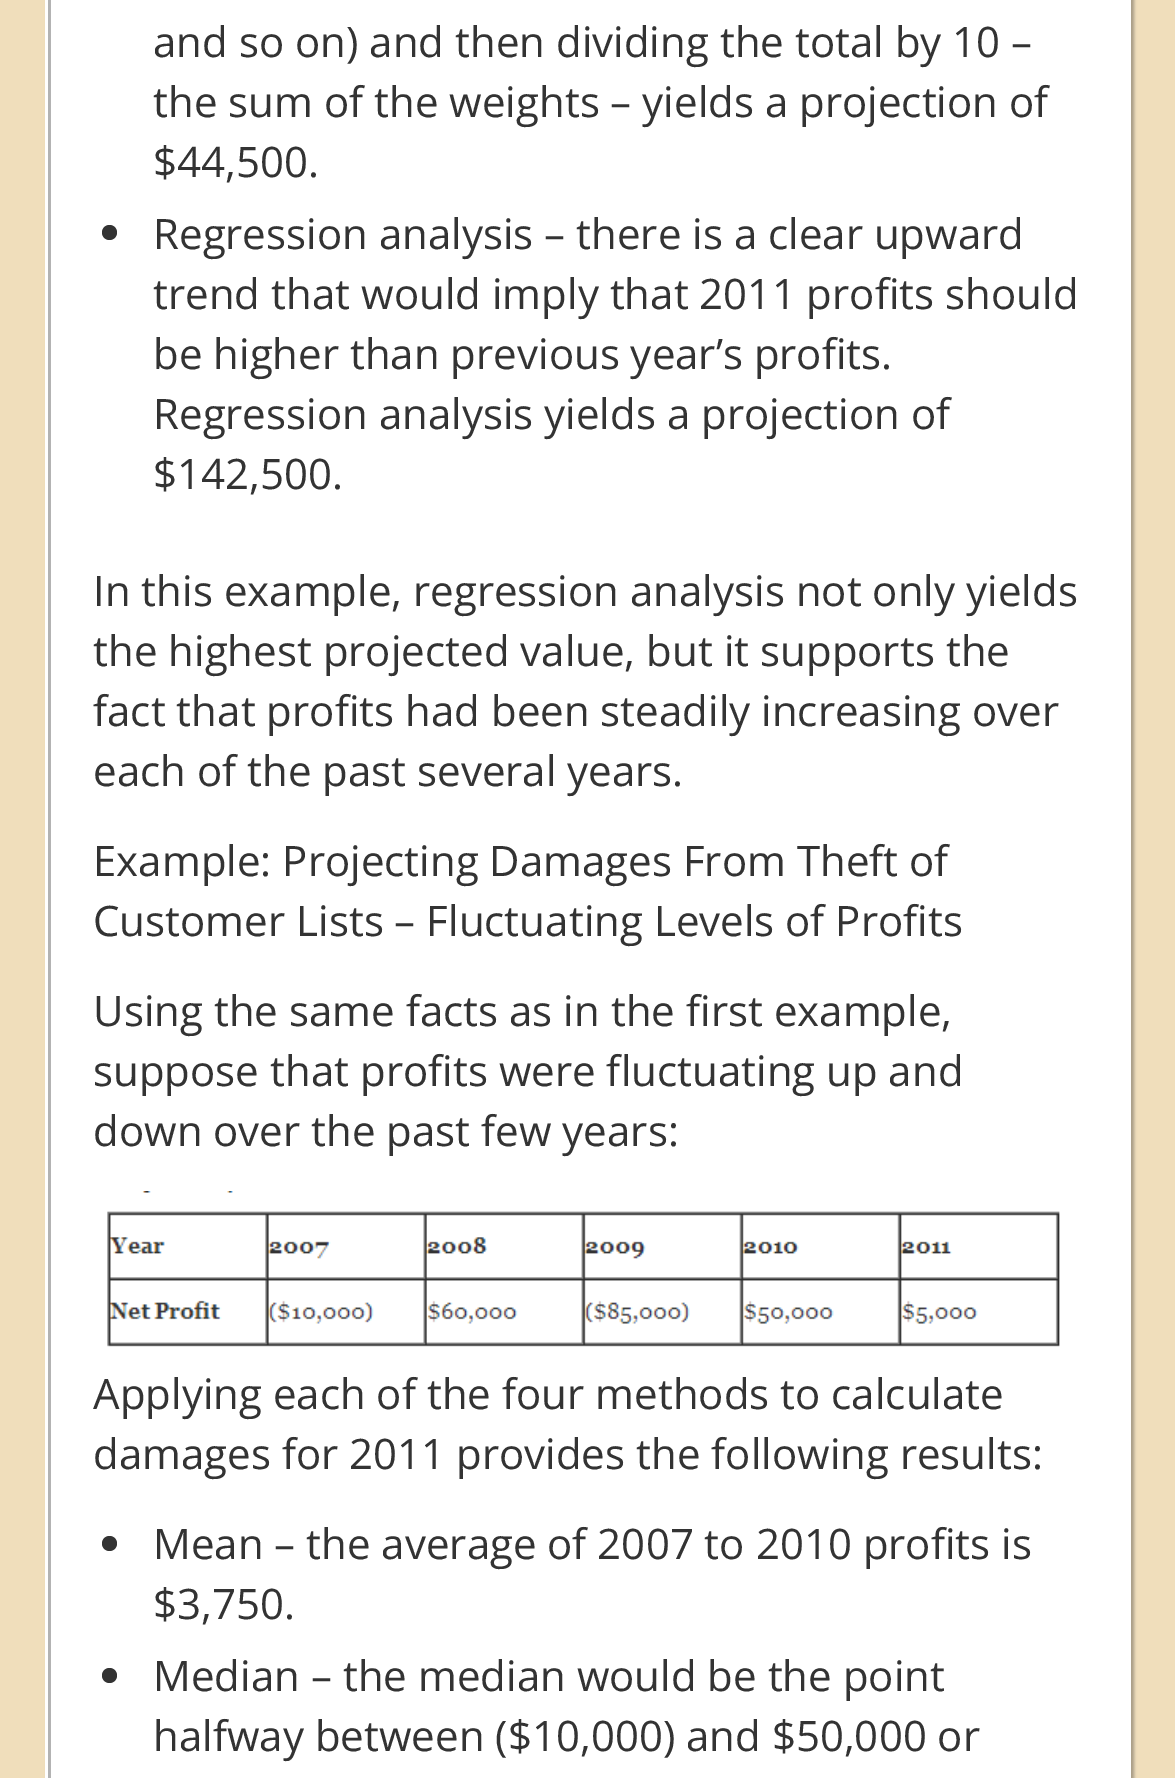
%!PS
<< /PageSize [1175 1778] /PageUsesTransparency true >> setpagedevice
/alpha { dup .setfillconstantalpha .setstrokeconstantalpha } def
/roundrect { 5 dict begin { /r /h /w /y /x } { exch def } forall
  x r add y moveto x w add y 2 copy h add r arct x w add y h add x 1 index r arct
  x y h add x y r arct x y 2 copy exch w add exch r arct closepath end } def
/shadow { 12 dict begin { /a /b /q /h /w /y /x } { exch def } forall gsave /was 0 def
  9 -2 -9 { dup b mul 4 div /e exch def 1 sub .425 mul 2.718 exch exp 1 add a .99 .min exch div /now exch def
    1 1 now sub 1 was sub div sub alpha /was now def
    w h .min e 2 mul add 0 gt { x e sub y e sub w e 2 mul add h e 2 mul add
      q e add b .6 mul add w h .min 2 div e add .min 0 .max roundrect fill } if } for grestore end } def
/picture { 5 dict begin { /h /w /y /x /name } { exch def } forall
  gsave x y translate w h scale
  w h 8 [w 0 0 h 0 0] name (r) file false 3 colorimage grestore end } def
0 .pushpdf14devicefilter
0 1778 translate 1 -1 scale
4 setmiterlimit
0.941 0.871 0.733 setrgbcolor
0 0 1175 1778 rectfill
0 setgray
48 -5 1086 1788 0 1.5 0.3 shadow
1 setgray
45 0 1086 1778 rectfill
gsave
48 0 1080 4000 rectclip
0.702 setgray
newpath -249 -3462 moveto 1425 -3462 lineto 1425 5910 lineto -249 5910 lineto closepath 51 -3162 moveto 1131 -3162 lineto 1131 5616 lineto 51 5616 lineto closepath eofill
grestore
/OpenSans-Regular [42 0 0 -42 0 0] selectfont
0.2 setgray
153 57 moveto (and so on\) and then dividing the total by 10 –) show
153 117 moveto (the sum of the weights – yields a projection of) show
153 177 moveto ($44,500.) show
newpath 109.5 232.5 7.5 0 360 arc closepath fill
153 249 moveto (Regression analysis – there is a clear upward) show
153 309 moveto (trend that would imply that 2011 profits should) show
153 369 moveto (be higher than previous year’s profits.) show
153 429 moveto (Regression analysis yields a projection of) show
153 489 moveto ($142,500.) show
93 606 moveto (In this example, regression analysis not only yields) show
93 666 moveto (the highest projected value, but it supports the) show
93 726 moveto (fact that profits had been steadily increasing over) show
93 786 moveto (each of the past several years.) show
93 876 moveto (Example: Projecting Damages From Theft of) show
93 936 moveto (Customer Lists – Fluctuating Levels of Profits) show
93 1026 moveto (Using the same facts as in the first example,) show
93 1086 moveto (suppose that profits were fluctuating up and) show
93 1146 moveto (down over the past few years:) show
(img1.rgb) 107 1191 953 156 picture
93 1409 moveto (Applying each of the four methods to calculate) show
93 1469 moveto (damages for 2011 provides the following results:) show
newpath 109.5 1543.5 7.5 0 360 arc closepath fill
153 1559 moveto (Mean – the average of 2007 to 2010 profits is) show
153 1619 moveto ($3,750.) show
newpath 109.5 1675.5 7.5 0 360 arc closepath fill
153 1691 moveto (Median – the median would be the point) show
153 1751 moveto (halfway between \($10,000\) and $50,000 or) show
.poppdf14devicefilter showpage
